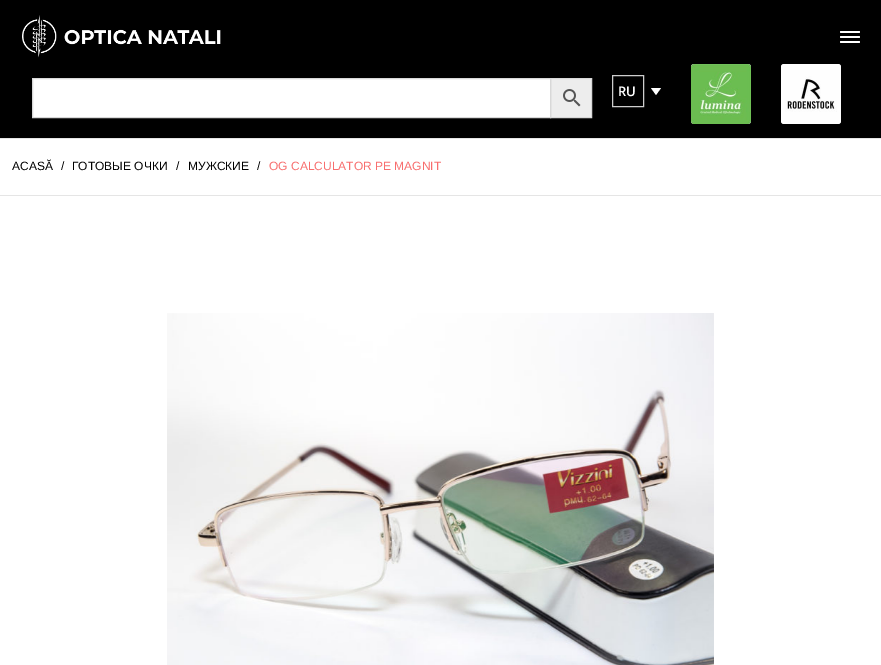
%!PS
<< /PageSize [881 665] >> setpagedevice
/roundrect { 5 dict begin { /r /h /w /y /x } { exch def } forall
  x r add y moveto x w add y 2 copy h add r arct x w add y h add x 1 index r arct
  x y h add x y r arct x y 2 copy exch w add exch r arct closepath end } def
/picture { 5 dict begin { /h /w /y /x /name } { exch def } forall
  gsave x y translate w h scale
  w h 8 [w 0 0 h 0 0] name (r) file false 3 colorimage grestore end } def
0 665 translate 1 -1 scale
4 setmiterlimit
1 setgray
0 0 881 665 rectfill
0 setgray
0 0 881 138 rectfill
0.898 setgray
0 138 881 1 rectfill
(img1.rgb) 22 15 199 43 picture
1 setgray
840 36 20 2 1 roundrect fill
840 31 20 2 1 roundrect fill
840 41 20 2 1 roundrect fill
33 79 517 38 rectfill
0.929 setgray
newpath 550.5 78.5 moveto 591.5 78.5 lineto 591.5 117.5 lineto 550.5 117.5 lineto closepath gsave fill grestore
0.847 setgray
stroke
32.5 78.5 518 39 rectstroke
(img2.rgb) 563 89 18 18 picture
0.804 setgray
612.5 75.5 31 31 rectstroke
/Mukta-Medium [15 0 0 -15 0 0] selectfont
1 setgray
618 96 moveto (RU) show
newpath 651 88 moveto 661 88 lineto 656 95 lineto closepath fill
(img3.rgb) 691 64 60 60 picture
(img4.rgb) 781 64 60 60 picture
0.898 setgray
0 195 881 1 rectfill
/LiberationSans-Regular [12 0 0 -12 0 0] selectfont
0 setgray
12 170 moveto (ACASĂ) show
61 170 moveto (/) show
72 170 moveto (ГОТОВЫЕ ОЧКИ) show
176 170 moveto (/) show
188 170 moveto (МУЖСКИЕ) show
257 170 moveto (/) show
0.973 0.431 0.431 setrgbcolor
269 170 moveto (OG CALCULATOR PE MAGNIT) show
(img5.rgb) 167 313 547 352 picture
(img6.rgb) 198 313 516 352 picture
showpage
